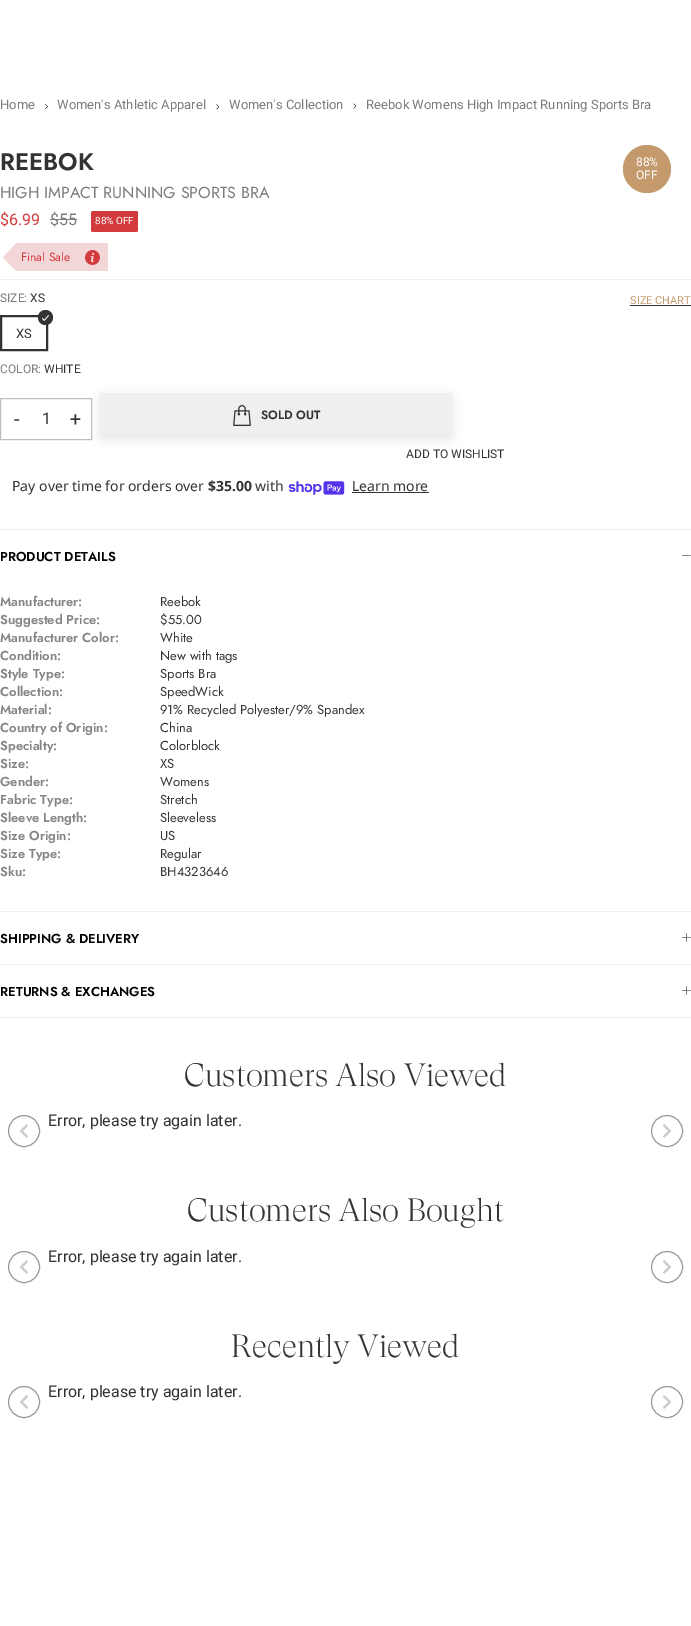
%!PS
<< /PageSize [691 1626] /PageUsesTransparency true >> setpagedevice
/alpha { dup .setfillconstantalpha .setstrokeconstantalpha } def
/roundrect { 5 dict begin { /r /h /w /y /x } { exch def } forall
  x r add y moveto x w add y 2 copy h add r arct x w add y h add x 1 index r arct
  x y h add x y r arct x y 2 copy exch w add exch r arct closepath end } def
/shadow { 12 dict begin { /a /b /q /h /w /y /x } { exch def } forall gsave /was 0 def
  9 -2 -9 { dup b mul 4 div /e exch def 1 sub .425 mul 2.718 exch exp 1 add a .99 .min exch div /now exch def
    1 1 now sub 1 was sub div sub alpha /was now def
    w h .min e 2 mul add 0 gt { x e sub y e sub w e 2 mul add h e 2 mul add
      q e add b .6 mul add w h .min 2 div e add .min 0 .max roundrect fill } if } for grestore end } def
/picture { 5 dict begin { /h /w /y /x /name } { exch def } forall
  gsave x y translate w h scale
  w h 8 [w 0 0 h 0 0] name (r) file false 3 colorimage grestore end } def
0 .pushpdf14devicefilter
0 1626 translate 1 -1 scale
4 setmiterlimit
1 setgray
0 0 691 1626 rectfill
/Heebo-Regular [13 0 0 -13 0 0] selectfont
0.49 0.486 0.486 setrgbcolor
0 109 moveto (Home) show
(img1.rgb) 45 104 3 6 picture
57 109 moveto (Women's Athletic Apparel) show
(img2.rgb) 216 104 3 6 picture
229 109 moveto (Women's Collection) show
(img3.rgb) 353 103 4 6 picture
366 109 moveto (Reebok Womens High Impact Running Sports Bra) show
/Jost-SemiBold [24 0 0 -24 0 0] selectfont
0.2 setgray
0 170 moveto (REEBOK) show
/Jost-Regular [16 0 0 -16 0 0] selectfont
0.49 0.486 0.486 setrgbcolor
0 198 moveto (HIGH IMPACT RUNNING SPORTS BRA) show
/Heebo-Regular [16 0 0 -16 0 0] selectfont
0.827 0.227 0.243 setrgbcolor
0 225 moveto ($6.99) show
0.49 0.486 0.486 setrgbcolor
50 225 moveto ($55) show
50 219 27 1 rectfill
0.827 0.227 0.243 setrgbcolor
91 211 47 21 2 roundrect fill
/Heebo-Regular [10 0 0 -10 0 0] selectfont
1 setgray
95 224 moveto (88% OFF) show
0.953 0.843 0.847 setrgbcolor
2 243 106 28 rectfill
gsave
0 243 108 28 rectclip
1 setgray
newpath -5 222 moveto 16 243 lineto -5 265 lineto -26 243 lineto closepath fill
newpath -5 250 moveto 16 271 lineto -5 293 lineto -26 271 lineto closepath fill
grestore
/Jost-Regular [12 0 0 -12 0 0] selectfont
0.827 0.227 0.243 setrgbcolor
21 261 moveto (Final Sale) show
(img4.rgb) 85 250 15 15 picture
0.933 setgray
0 279 691 1 rectfill
/Heebo-Regular [12 0 0 -12 0 0] selectfont
0.49 0.486 0.486 setrgbcolor
0 302 moveto (SIZE:) show
0.2 setgray
30 302 moveto (XS) show
2 setlinewidth
1 316 46 34 rectstroke
newpath 45.5 317.5 7.5 0 360 arc closepath fill
(img5.rgb) 42 315 7 6 picture
/Heebo-Regular [13 0 0 -13 0 0] selectfont
16 338 moveto (XS) show
/Heebo-Regular [12 0 0 -12 0 0] selectfont
0.49 0.486 0.486 setrgbcolor
0 373 moveto (COLOR:) show
0.2 setgray
44 373 moveto (WHITE) show
/Heebo-Regular [11 0 0 -11 0 0] selectfont
0.769 0.6 0.424 setrgbcolor
630 304 moveto (SIZE CHART) show
0.2 setgray
630 305 61 1 rectfill
0 setgray
102 398 348 38 0 6.5 0.15 shadow
0.745 setgray
1 setlinewidth
0.5 398.5 91 41 rectstroke
/Heebo-Regular [20 0 0 -20 0 0] selectfont
0.2 setgray
14 426 moveto (-) show
/Heebo-Regular [16 0 0 -16 0 0] selectfont
42 424 moveto (1) show
/Heebo-Regular [20 0 0 -20 0 0] selectfont
70 426 moveto (+) show
0.933 0.941 0.937 setrgbcolor
100 393 352 42 rectfill
(img6.rgb) 233 405 18 21 picture
/Jost-SemiBold [12 0 0 -12 0 0] selectfont
0.2 setgray
261 419 moveto (SOLD OUT) show
/Heebo-Regular [12 0 0 -12 0 0] selectfont
406 458 moveto (ADD TO WISHLIST) show
/NotoSans-Regular [14 0 0 -14 0 0] selectfont
12 491 moveto (Pay over time for orders over) show
/NotoSans-Bold [14 0 0 -14 0 0] selectfont
208 491 moveto ($35.00) show
/NotoSans-Regular [14 0 0 -14 0 0] selectfont
255 491 moveto (with) show
(img7.rgb) 288 481 57 14 picture
352 491 moveto (Learn more) show
352 492 77 1 rectfill
0.933 setgray
0 1017 691 1 rectfill
0 529 691 1 rectfill
/Jost-SemiBold [13 0 0 -13 0 0] selectfont
0 setgray
0 561 moveto (PRODUCT DETAILS) show
(img8.rgb) 682 555 9 1 picture
0.522 setgray
0 606 moveto (Manufacturer:) show
/Jost-Regular [13 0 0 -13 0 0] selectfont
0.2 setgray
160 606 moveto (Reebok) show
/Jost-SemiBold [13 0 0 -13 0 0] selectfont
0.522 setgray
0 624 moveto (Suggested Price:) show
/Jost-Regular [13 0 0 -13 0 0] selectfont
0.2 setgray
160 624 moveto ($55.00) show
/Jost-SemiBold [13 0 0 -13 0 0] selectfont
0.522 setgray
0 642 moveto (Manufacturer Color:) show
/Jost-Regular [13 0 0 -13 0 0] selectfont
0.2 setgray
160 642 moveto (White) show
/Jost-SemiBold [13 0 0 -13 0 0] selectfont
0.522 setgray
0 660 moveto (Condition:) show
/Jost-Regular [13 0 0 -13 0 0] selectfont
0.2 setgray
160 660 moveto (New with tags) show
/Jost-SemiBold [13 0 0 -13 0 0] selectfont
0.522 setgray
0 678 moveto (Style Type:) show
/Jost-Regular [13 0 0 -13 0 0] selectfont
0.2 setgray
160 678 moveto (Sports Bra) show
/Jost-SemiBold [13 0 0 -13 0 0] selectfont
0.522 setgray
0 696 moveto (Collection:) show
/Jost-Regular [13 0 0 -13 0 0] selectfont
0.2 setgray
160 696 moveto (SpeedWick) show
/Jost-SemiBold [13 0 0 -13 0 0] selectfont
0.522 setgray
0 714 moveto (Material:) show
/Jost-Regular [13 0 0 -13 0 0] selectfont
0.2 setgray
160 714 moveto (91% Recycled Polyester/9% Spandex) show
/Jost-SemiBold [13 0 0 -13 0 0] selectfont
0.522 setgray
0 732 moveto (Country of Origin:) show
/Jost-Regular [13 0 0 -13 0 0] selectfont
0.2 setgray
160 732 moveto (China) show
/Jost-SemiBold [13 0 0 -13 0 0] selectfont
0.522 setgray
0 750 moveto (Specialty:) show
/Jost-Regular [13 0 0 -13 0 0] selectfont
0.2 setgray
160 750 moveto (Colorblock) show
/Jost-SemiBold [13 0 0 -13 0 0] selectfont
0.522 setgray
0 768 moveto (Size:) show
/Jost-Regular [13 0 0 -13 0 0] selectfont
0.2 setgray
160 768 moveto (XS) show
/Jost-SemiBold [13 0 0 -13 0 0] selectfont
0.522 setgray
0 786 moveto (Gender:) show
/Jost-Regular [13 0 0 -13 0 0] selectfont
0.2 setgray
160 786 moveto (Womens) show
/Jost-SemiBold [13 0 0 -13 0 0] selectfont
0.522 setgray
0 804 moveto (Fabric Type:) show
/Jost-Regular [13 0 0 -13 0 0] selectfont
0.2 setgray
160 804 moveto (Stretch) show
/Jost-SemiBold [13 0 0 -13 0 0] selectfont
0.522 setgray
0 822 moveto (Sleeve Length:) show
/Jost-Regular [13 0 0 -13 0 0] selectfont
0.2 setgray
160 822 moveto (Sleeveless) show
/Jost-SemiBold [13 0 0 -13 0 0] selectfont
0.522 setgray
0 840 moveto (Size Origin:) show
/Jost-Regular [13 0 0 -13 0 0] selectfont
0.2 setgray
160 840 moveto (US) show
/Jost-SemiBold [13 0 0 -13 0 0] selectfont
0.522 setgray
0 858 moveto (Size Type:) show
/Jost-Regular [13 0 0 -13 0 0] selectfont
0.2 setgray
160 858 moveto (Regular) show
/Jost-SemiBold [13 0 0 -13 0 0] selectfont
0.522 setgray
0 876 moveto (Sku:) show
/Jost-Regular [13 0 0 -13 0 0] selectfont
0.2 setgray
160 876 moveto (BH4323646) show
0.933 setgray
0 911 691 1 rectfill
/Jost-SemiBold [13 0 0 -13 0 0] selectfont
0 setgray
0 943 moveto (SHIPPING & DELIVERY) show
(img9.rgb) 682 933 9 9 picture
0.933 setgray
0 964 691 1 rectfill
0 setgray
0 996 moveto (RETURNS & EXCHANGES) show
(img9.rgb) 682 986 9 9 picture
0.769 0.6 0.424 setrgbcolor
newpath 647 169 24 0 360 arc closepath fill
/Heebo-Regular [12 0 0 -12 0 0] selectfont
1 setgray
636 166 moveto (88%) show
636 179 moveto (OFF) show
/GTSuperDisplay-Light [32 0 0 -32 0 0] selectfont
0.2 setgray
184 1086 moveto (Customers Also Viewed) show
0.6 setgray
newpath 24 1131 15.5 0 360 arc closepath stroke
(img10.rgb) 20 1124 8 14 picture
/Heebo-Regular [16 0 0 -16 0 0] selectfont
0.2 setgray
48 1126 moveto (Error, please try again later.) show
0.6 setgray
newpath 667 1131 15.5 0 360 arc closepath stroke
(img11.rgb) 663 1124 8 14 picture
/GTSuperDisplay-Light [32 0 0 -32 0 0] selectfont
0.2 setgray
187 1221 moveto (Customers Also Bought) show
0.6 setgray
newpath 24 1267 15.5 0 360 arc closepath stroke
(img10.rgb) 20 1260 8 14 picture
/Heebo-Regular [16 0 0 -16 0 0] selectfont
0.2 setgray
48 1262 moveto (Error, please try again later.) show
0.6 setgray
newpath 667 1267 15.5 0 360 arc closepath stroke
(img11.rgb) 663 1260 8 14 picture
/GTSuperDisplay-Light [32 0 0 -32 0 0] selectfont
0.2 setgray
231 1357 moveto (Recently Viewed) show
0.6 setgray
newpath 24 1402 15.5 0 360 arc closepath stroke
(img10.rgb) 20 1395 8 14 picture
/Heebo-Regular [16 0 0 -16 0 0] selectfont
0.2 setgray
48 1397 moveto (Error, please try again later.) show
0.6 setgray
newpath 667 1402 15.5 0 360 arc closepath stroke
(img11.rgb) 663 1395 8 14 picture
.poppdf14devicefilter showpage
